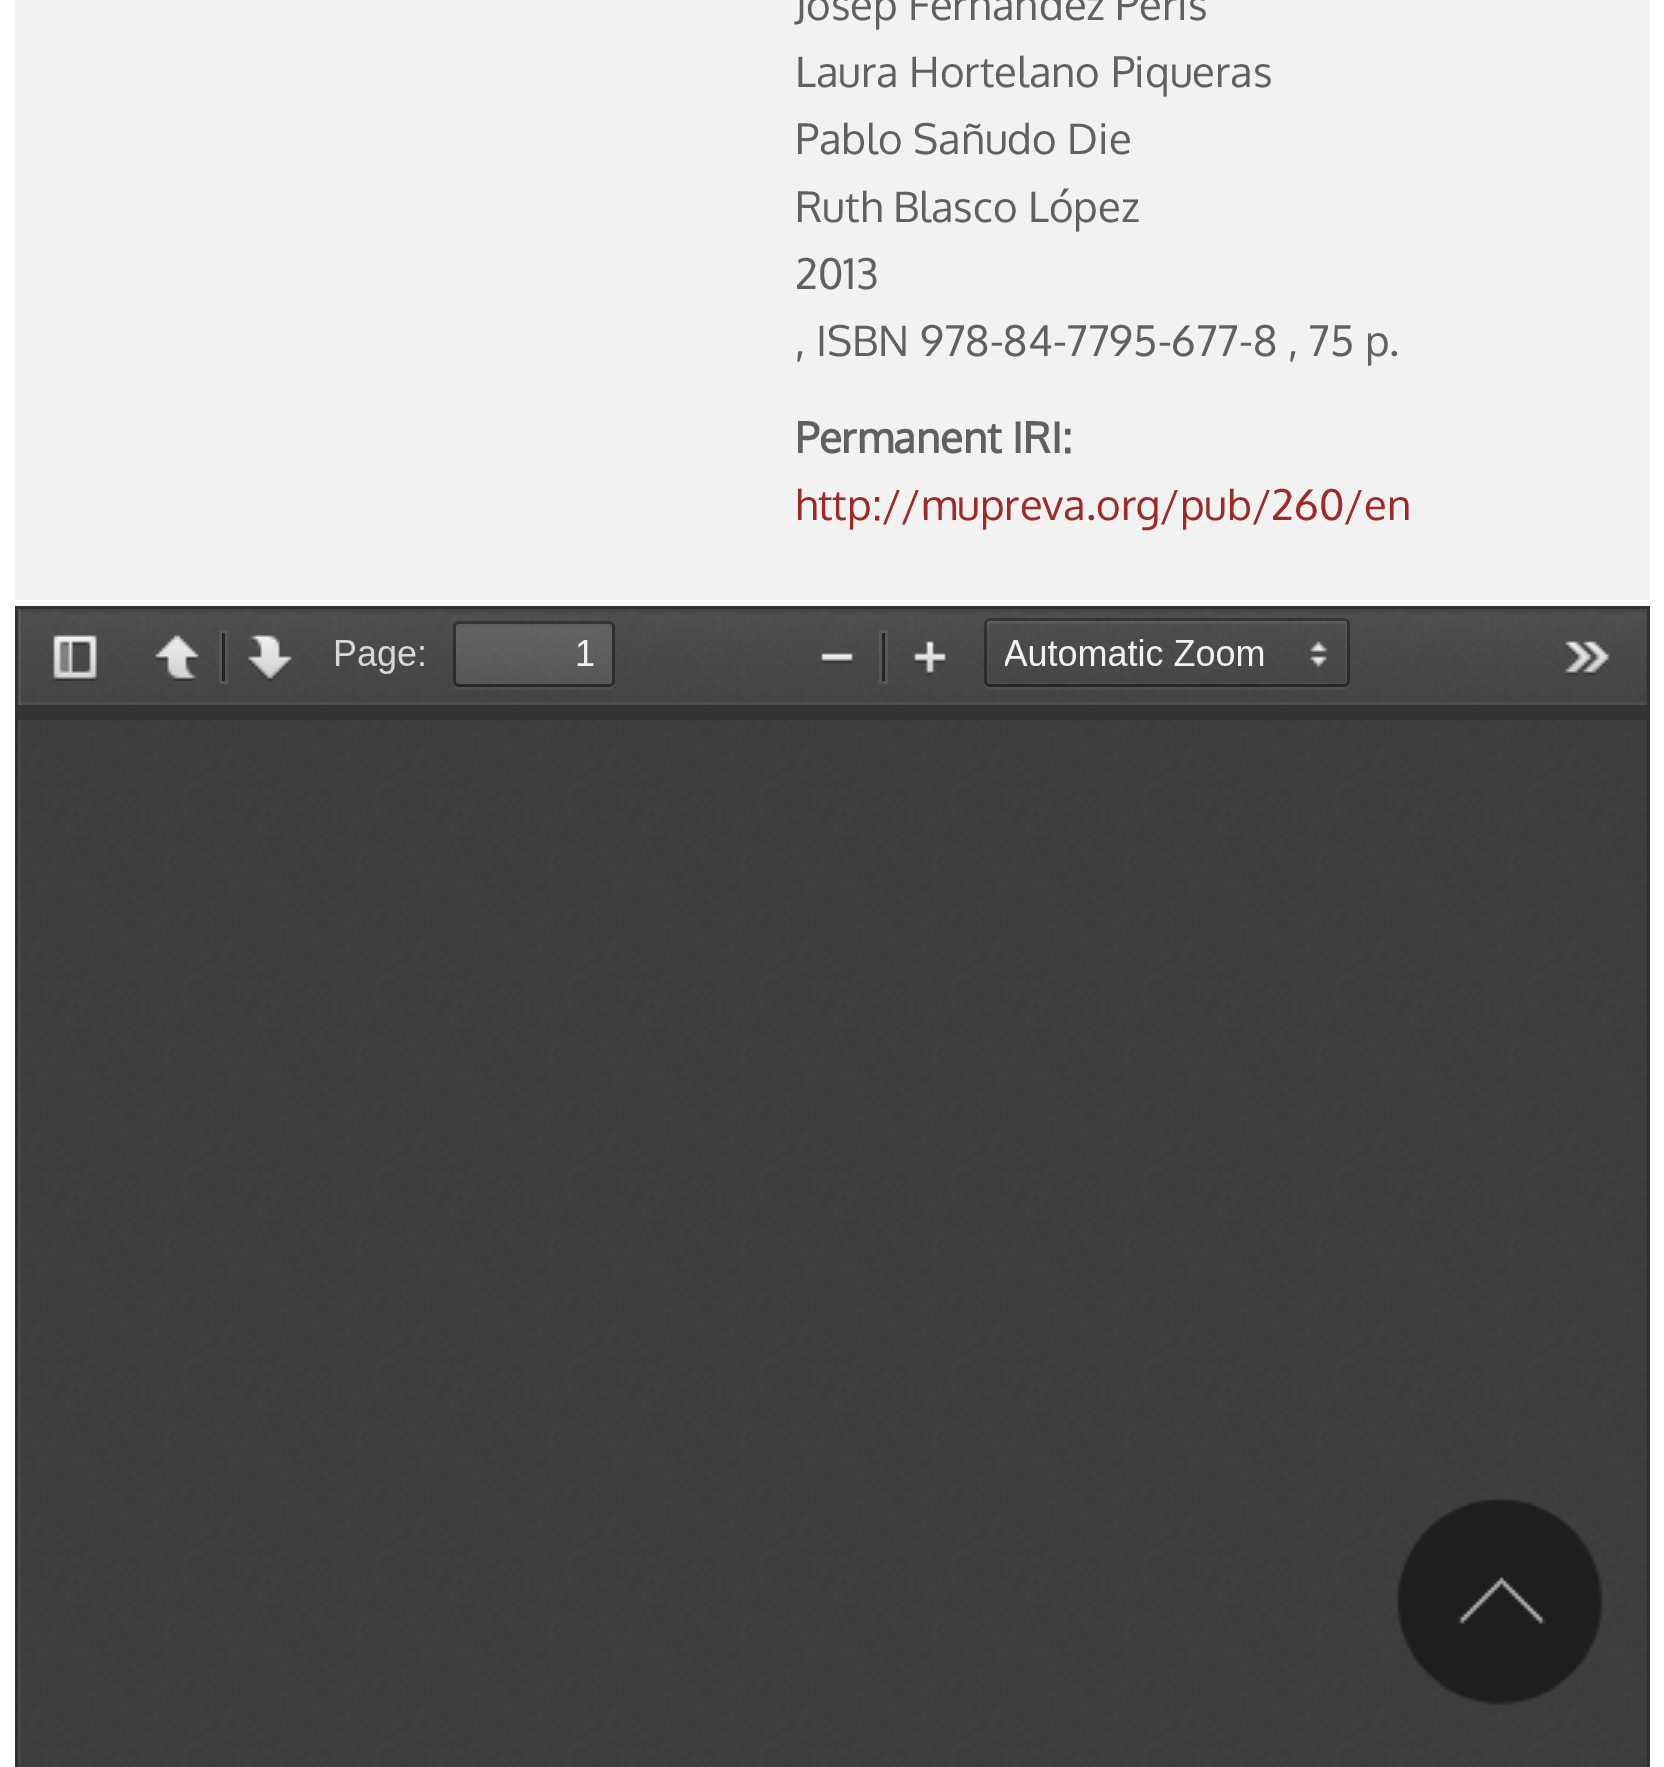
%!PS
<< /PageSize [1664 1767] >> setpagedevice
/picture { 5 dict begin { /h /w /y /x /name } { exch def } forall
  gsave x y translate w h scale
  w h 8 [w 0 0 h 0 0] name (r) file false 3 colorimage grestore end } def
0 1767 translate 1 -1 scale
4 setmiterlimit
1 setgray
0 0 1664 1767 rectfill
0.949 setgray
15 0 1635 600 rectfill
/Oxygen-Regular [42 0 0 -42 0 0] selectfont
0.376 setgray
795 20 moveto (Josep Fernández Peris) show
795 87 moveto (Laura Hortelano Piqueras) show
795 154 moveto (Pablo Sañudo Die) show
795 222 moveto (Ruth Blasco López) show
795 289 moveto (2013) show
795 356 moveto (, ISBN 978-84-7795-677-8 , 75 p.) show
/Oxygen-Bold [42 0 0 -42 0 0] selectfont
795 453 moveto (Permanent IRI:) show
/Oxygen-Regular [42 0 0 -42 0 0] selectfont
0.62 0.161 0.149 setrgbcolor
795 520 moveto (http://mupreva.org/pub/260/en) show
0.188 setgray
15 606 1635 1161 rectfill
(img1.rgb) 18 609 1629 1158 picture
(img2.rgb) 1397 1497 206 208 picture
showpage
